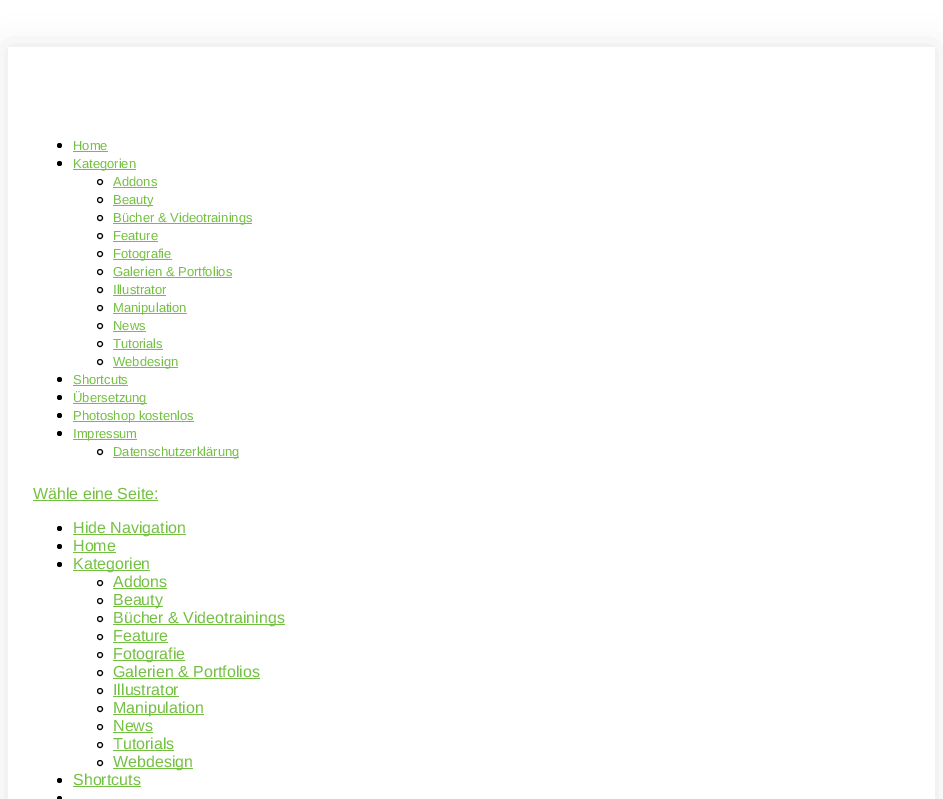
%!PS
<< /PageSize [943 799] /PageUsesTransparency true >> setpagedevice
/alpha { dup .setfillconstantalpha .setstrokeconstantalpha } def
/roundrect { 5 dict begin { /r /h /w /y /x } { exch def } forall
  x r add y moveto x w add y 2 copy h add r arct x w add y h add x 1 index r arct
  x y h add x y r arct x y 2 copy exch w add exch r arct closepath end } def
/shadow { 12 dict begin { /a /b /q /h /w /y /x } { exch def } forall gsave /was 0 def
  9 -2 -9 { dup b mul 4 div /e exch def 1 sub .425 mul 2.718 exch exp 1 add a .99 .min exch div /now exch def
    1 1 now sub 1 was sub div sub alpha /was now def
    w h .min e 2 mul add 0 gt { x e sub y e sub w e 2 mul add h e 2 mul add
      q e add b .6 mul add w h .min 2 div e add .min 0 .max roundrect fill } if } for grestore end } def
0 .pushpdf14devicefilter
0 799 translate 1 -1 scale
4 setmiterlimit
1 setgray
0 0 943 799 rectfill
gsave
newpath 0 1 moveto 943 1 lineto 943 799 lineto 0 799 lineto closepath 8 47 moveto 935 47 lineto 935 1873 lineto 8 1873 lineto closepath eoclip newpath
0 setgray
8 47 927 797 0 15 0.1 shadow
grestore
0 setgray
newpath 59.5 145.5 2.5 0 360 arc closepath fill
/LiberationSans-Regular [13 0 0 -13 0 0] selectfont
0.455 0.753 0.259 setrgbcolor
73 150 moveto (Home) show
73 151 35 1 rectfill
0 setgray
newpath 59.5 163.5 2.5 0 360 arc closepath fill
0.455 0.753 0.259 setrgbcolor
73 169 63 1 rectfill
73 168 moveto (Kategorien) show
0 setgray
newpath 100 182 2.5 0 360 arc closepath stroke
0.455 0.753 0.259 setrgbcolor
113 186 moveto (Addons) show
113 187 44 1 rectfill
0 setgray
newpath 100 200 2.5 0 360 arc closepath stroke
0.455 0.753 0.259 setrgbcolor
113 205 40 1 rectfill
113 204 moveto (Beauty) show
0 setgray
newpath 100 218 2.5 0 360 arc closepath stroke
0.455 0.753 0.259 setrgbcolor
113 223 139 1 rectfill
113 222 moveto (Bücher & Videotrainings) show
0 setgray
newpath 100 236 2.5 0 360 arc closepath stroke
0.455 0.753 0.259 setrgbcolor
113 240 moveto (Feature) show
113 241 45 1 rectfill
0 setgray
newpath 100 254 2.5 0 360 arc closepath stroke
0.455 0.753 0.259 setrgbcolor
113 259 59 1 rectfill
113 258 moveto (Fotografie) show
0 setgray
newpath 100 272 2.5 0 360 arc closepath stroke
0.455 0.753 0.259 setrgbcolor
113 276 moveto (Galerien & Portfolios) show
113 277 119 1 rectfill
0 setgray
newpath 100 290 2.5 0 360 arc closepath stroke
0.455 0.753 0.259 setrgbcolor
113 294 moveto (Illustrator) show
113 295 53 1 rectfill
0 setgray
newpath 100 308 2.5 0 360 arc closepath stroke
0.455 0.753 0.259 setrgbcolor
113 313 74 1 rectfill
113 312 moveto (Manipulation) show
0 setgray
newpath 100 326 2.5 0 360 arc closepath stroke
0.455 0.753 0.259 setrgbcolor
113 330 moveto (News) show
113 331 33 1 rectfill
0 setgray
newpath 100 344 2.5 0 360 arc closepath stroke
0.455 0.753 0.259 setrgbcolor
113 348 moveto (Tutorials) show
113 349 50 1 rectfill
0 setgray
newpath 100 362 2.5 0 360 arc closepath stroke
0.455 0.753 0.259 setrgbcolor
113 367 65 1 rectfill
113 366 moveto (Webdesign) show
0 setgray
newpath 59.5 379.5 2.5 0 360 arc closepath fill
0.455 0.753 0.259 setrgbcolor
73 384 moveto (Shortcuts) show
73 385 55 1 rectfill
0 setgray
newpath 59.5 397.5 2.5 0 360 arc closepath fill
0.455 0.753 0.259 setrgbcolor
73 403 74 1 rectfill
73 402 moveto (Übersetzung) show
0 setgray
newpath 59.5 415.5 2.5 0 360 arc closepath fill
0.455 0.753 0.259 setrgbcolor
73 421 121 1 rectfill
73 420 moveto (Photoshop kostenlos) show
0 setgray
newpath 59.5 433.5 2.5 0 360 arc closepath fill
0.455 0.753 0.259 setrgbcolor
73 439 64 1 rectfill
73 438 moveto (Impressum) show
0 setgray
newpath 100 452 2.5 0 360 arc closepath stroke
0.455 0.753 0.259 setrgbcolor
113 457 126 1 rectfill
113 456 moveto (Datenschutzerklärung) show
/LiberationSans-Regular [16 0 0 -16 0 0] selectfont
33 499 moveto (Wähle eine Seite:) show
33 500 125 1 rectfill
0 setgray
newpath 59.5 528.5 2.5 0 360 arc closepath fill
0.455 0.753 0.259 setrgbcolor
73 534 113 1 rectfill
73 533 moveto (Hide Navigation) show
0 setgray
newpath 59.5 546.5 2.5 0 360 arc closepath fill
0.455 0.753 0.259 setrgbcolor
73 551 moveto (Home) show
73 552 43 1 rectfill
0 setgray
newpath 59.5 564.5 2.5 0 360 arc closepath fill
0.455 0.753 0.259 setrgbcolor
73 570 77 1 rectfill
73 569 moveto (Kategorien) show
0 setgray
newpath 100 583 2.5 0 360 arc closepath stroke
0.455 0.753 0.259 setrgbcolor
113 587 moveto (Addons) show
113 588 54 1 rectfill
0 setgray
newpath 100 601 2.5 0 360 arc closepath stroke
0.455 0.753 0.259 setrgbcolor
113 606 50 1 rectfill
113 605 moveto (Beauty) show
0 setgray
newpath 100 619 2.5 0 360 arc closepath stroke
0.455 0.753 0.259 setrgbcolor
113 624 172 1 rectfill
113 623 moveto (Bücher & Videotrainings) show
0 setgray
newpath 100 637 2.5 0 360 arc closepath stroke
0.455 0.753 0.259 setrgbcolor
113 641 moveto (Feature) show
113 642 55 1 rectfill
0 setgray
newpath 100 655 2.5 0 360 arc closepath stroke
0.455 0.753 0.259 setrgbcolor
113 660 72 1 rectfill
113 659 moveto (Fotografie) show
0 setgray
newpath 100 673 2.5 0 360 arc closepath stroke
0.455 0.753 0.259 setrgbcolor
113 677 moveto (Galerien & Portfolios) show
113 678 147 1 rectfill
0 setgray
newpath 100 691 2.5 0 360 arc closepath stroke
0.455 0.753 0.259 setrgbcolor
113 695 moveto (Illustrator) show
113 696 66 1 rectfill
0 setgray
newpath 100 709 2.5 0 360 arc closepath stroke
0.455 0.753 0.259 setrgbcolor
113 714 91 1 rectfill
113 713 moveto (Manipulation) show
0 setgray
newpath 100 727 2.5 0 360 arc closepath stroke
0.455 0.753 0.259 setrgbcolor
113 731 moveto (News) show
113 732 40 1 rectfill
0 setgray
newpath 100 745 2.5 0 360 arc closepath stroke
0.455 0.753 0.259 setrgbcolor
113 749 moveto (Tutorials) show
113 750 61 1 rectfill
0 setgray
newpath 100 763 2.5 0 360 arc closepath stroke
0.455 0.753 0.259 setrgbcolor
113 768 80 1 rectfill
113 767 moveto (Webdesign) show
0 setgray
newpath 59.5 780.5 2.5 0 360 arc closepath fill
0.455 0.753 0.259 setrgbcolor
73 785 moveto (Shortcuts) show
73 786 68 1 rectfill
0 setgray
newpath 59.5 798.5 2.5 0 360 arc closepath fill
.poppdf14devicefilter showpage
